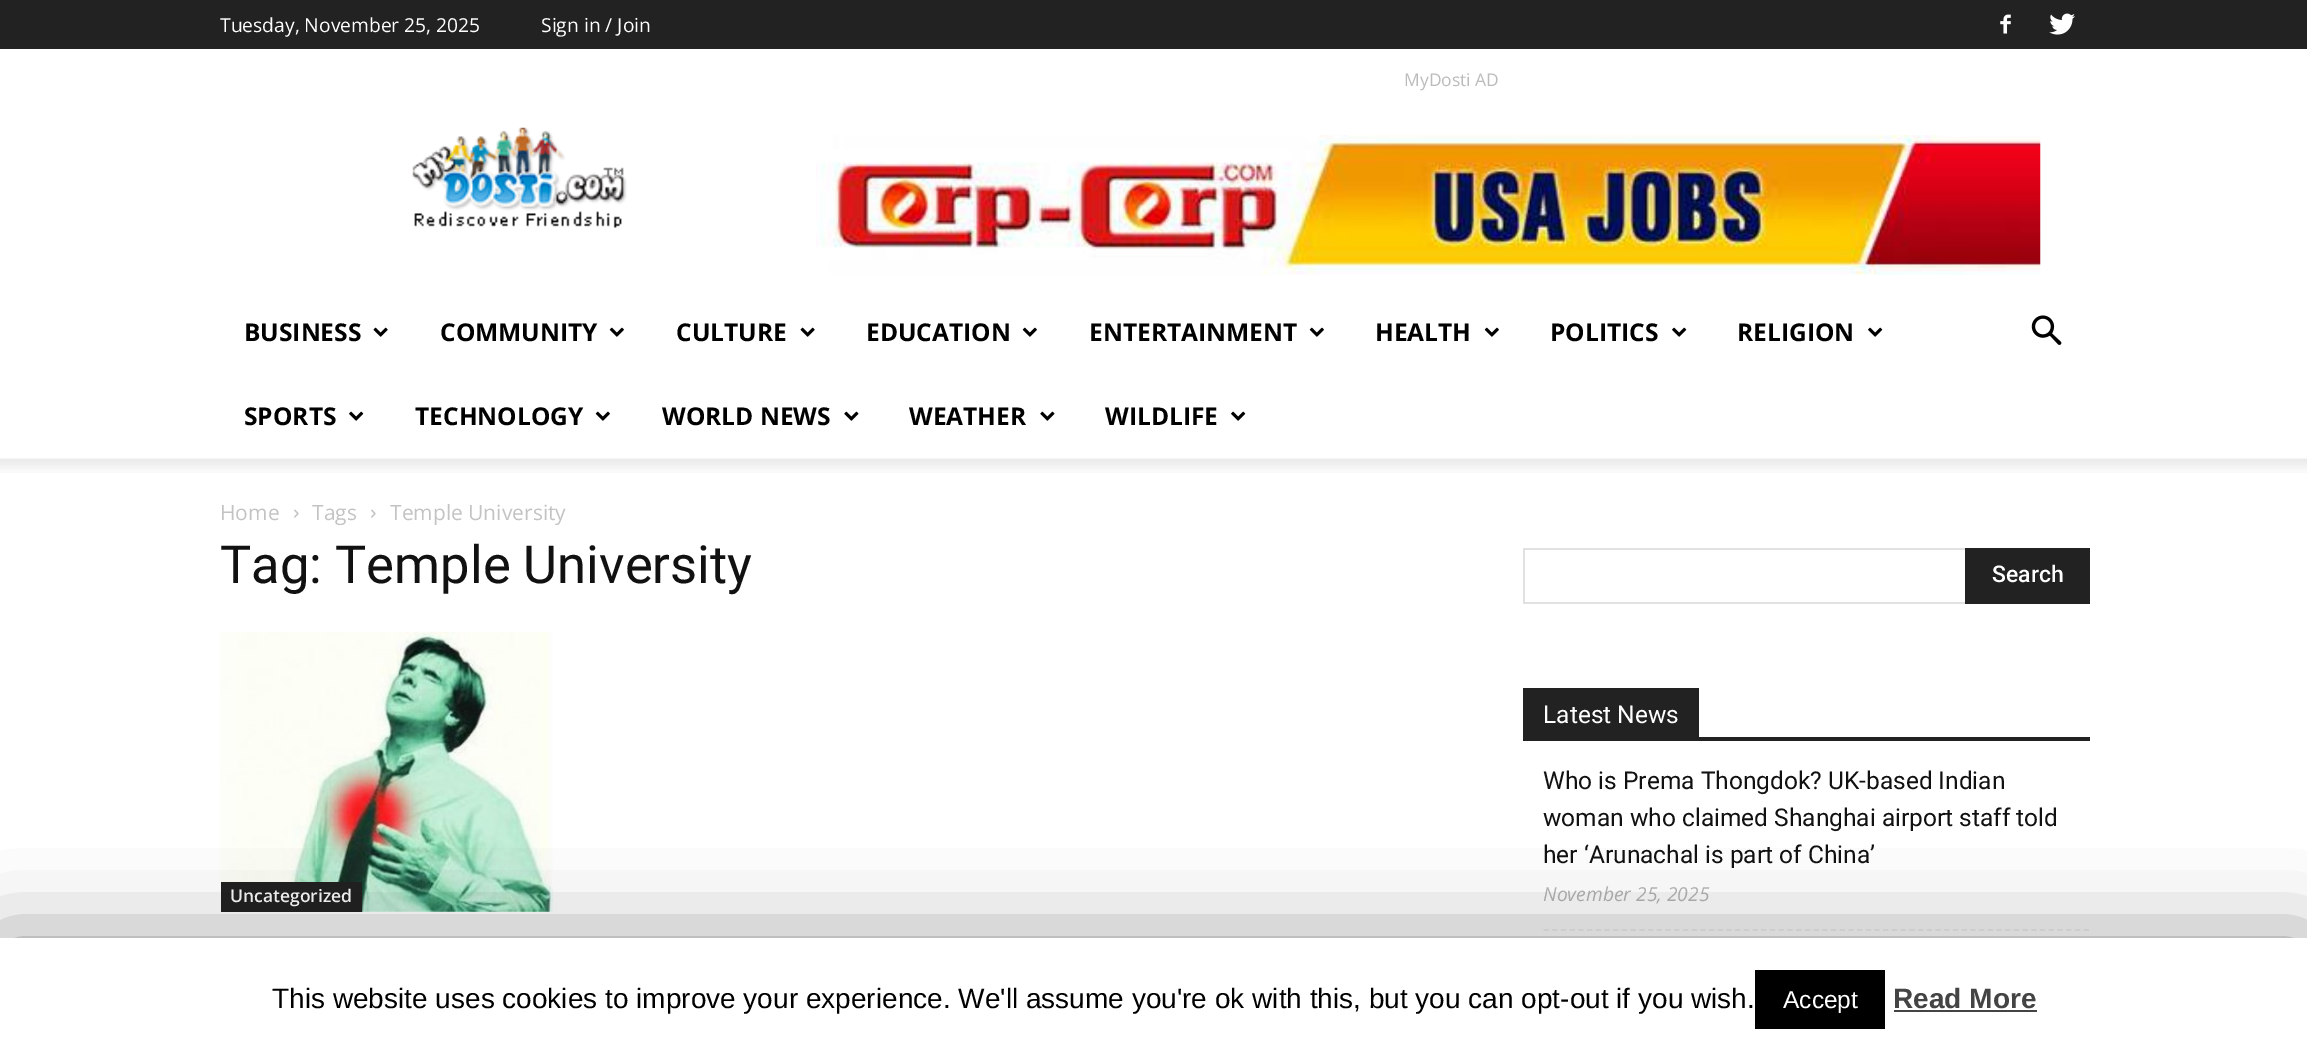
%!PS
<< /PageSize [2307 1051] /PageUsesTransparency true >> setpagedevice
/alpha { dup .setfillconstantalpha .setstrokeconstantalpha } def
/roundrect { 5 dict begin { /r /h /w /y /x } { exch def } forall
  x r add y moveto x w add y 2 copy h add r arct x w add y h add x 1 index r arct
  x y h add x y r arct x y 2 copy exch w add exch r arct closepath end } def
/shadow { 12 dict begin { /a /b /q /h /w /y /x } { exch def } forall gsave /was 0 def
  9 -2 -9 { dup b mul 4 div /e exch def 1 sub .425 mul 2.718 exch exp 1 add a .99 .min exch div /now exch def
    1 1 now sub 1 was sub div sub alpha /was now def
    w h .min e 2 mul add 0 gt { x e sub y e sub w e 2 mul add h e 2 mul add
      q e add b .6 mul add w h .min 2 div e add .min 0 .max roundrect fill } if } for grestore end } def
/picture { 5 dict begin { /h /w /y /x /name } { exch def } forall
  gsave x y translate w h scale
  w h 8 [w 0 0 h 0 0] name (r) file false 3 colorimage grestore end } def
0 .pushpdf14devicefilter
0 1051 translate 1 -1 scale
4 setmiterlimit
1 setgray
0 0 2307 1051 rectfill
0.133 setgray
0 0 2307 49 rectfill
/OpenSans-Regular [19.25 0 0 -19.25 0 0] selectfont
1 setgray
220 32 moveto (Tuesday, November 25, 2025) show
541 32 moveto (Sign in / Join) show
(img1.rgb) 2000 14 11 20 picture
(img2.rgb) 2049 13 26 22 picture
/OpenSans-Regular [17.5 0 0 -17.5 0 0] selectfont
0.733 setgray
1404 86 moveto (MyDosti AD) show
(img3.rgb) 816 135 1225 140 picture
(img4.rgb) 412 127 215 101 picture
/OpenSans-Bold [24.5 0 0 -24.5 0 0] selectfont
0 setgray
244 341 moveto (BUSINESS) show
(img5.rgb) 373 327 15 10 picture
440 341 moveto (COMMUNITY) show
(img6.rgb) 609 327 15 10 picture
676 341 moveto (CULTURE) show
(img5.rgb) 800 327 15 10 picture
866 341 moveto (EDUCATION) show
(img6.rgb) 1022 327 15 10 picture
1089 341 moveto (ENTERTAINMENT) show
(img6.rgb) 1309 327 15 10 picture
1375 341 moveto (HEALTH) show
(img6.rgb) 1484 327 15 10 picture
1550 341 moveto (POLITICS) show
(img7.rgb) 1672 327 15 10 picture
1737 341 moveto (RELIGION) show
(img7.rgb) 1868 327 15 10 picture
244 425 moveto (SPORTS) show
(img7.rgb) 349 411 15 10 picture
415 425 moveto (TECHNOLOGY) show
(img6.rgb) 595 411 15 10 picture
662 425 moveto (WORLD NEWS) show
(img8.rgb) 844 411 15 10 picture
909 425 moveto (WEATHER) show
(img8.rgb) 1040 411 15 10 picture
1105 425 moveto (WILDLIFE) show
(img7.rgb) 1231 411 15 10 picture
(img9.rgb) 2031 315 31 30 picture
(img10.rgb) 0 458 2307 15 picture
/OpenSans-Regular [21 0 0 -21 0 0] selectfont
0.765 setgray
220 520 moveto (Home) show
(img11.rgb) 294 509 5 9 picture
312 520 moveto (Tags) show
(img11.rgb) 371 509 5 9 picture
390 520 moveto (Temple University) show
/Roboto-Regular [52.5 0 0 -52.5 0 0] selectfont
0.067 setgray
220 583 moveto (Tag: Temple University) show
(img12.rgb) 220 631 333 281 picture
0.133 setgray
221 882 141 30 rectfill
/OpenSans-SemiBold [17.5 0 0 -17.5 0 0] selectfont
1 setgray
230 902 moveto (Uncategorized) show
0.882 setgray
1523 548 442 2 rectfill
1523 602 442 2 rectfill
1523 548 2 56 rectfill
0.133 setgray
1965 548 125 56 rectfill
/Roboto-Medium [23 0 0 -23 0 0] selectfont
1 setgray
1992 582 moveto (Search) show
0.133 setgray
1523 737 567 4 rectfill
1523 688 176 49 rectfill
/Roboto-Regular [24.5 0 0 -24.5 0 0] selectfont
1 setgray
1543 723 moveto (Latest News) show
0.945 setgray
1.8 setlinewidth
[5.25 3.46] 0 setdash
newpath 1543.5 930 moveto 2089.5 930 lineto stroke
0.067 setgray
1543 789 moveto (Who is Prema Thongdok? UK-based Indian) show
1543 826 moveto (woman who claimed Shanghai airport staff told) show
1543 863 moveto (her ‘Arunachal is part of China’) show
/OpenSans-Italic [19.25 0 0 -19.25 0 0] selectfont
0.71 setgray
1543 901 moveto (November 25, 2025) show
0 setgray
0 947 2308 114 0 44 0.5 shadow
1 setgray
0 938 2307 113 rectfill
/LiberationSans-Regular [28 0 0 -28 0 0] selectfont
0 setgray
272 1008 moveto (This website uses cookies to improve your experience. We'll assume you're ok with this, but you can opt-out if you wish.) show
1755 970 130 59 rectfill
/LiberationSans-Regular [24.5 0 0 -24.5 0 0] selectfont
1 setgray
1783 1008 moveto (Accept) show
/LiberationSans-Bold [28 0 0 -28 0 0] selectfont
0.267 setgray
1893 1008 moveto (Read More) show
1894 1010 143 2 rectfill
.poppdf14devicefilter showpage
